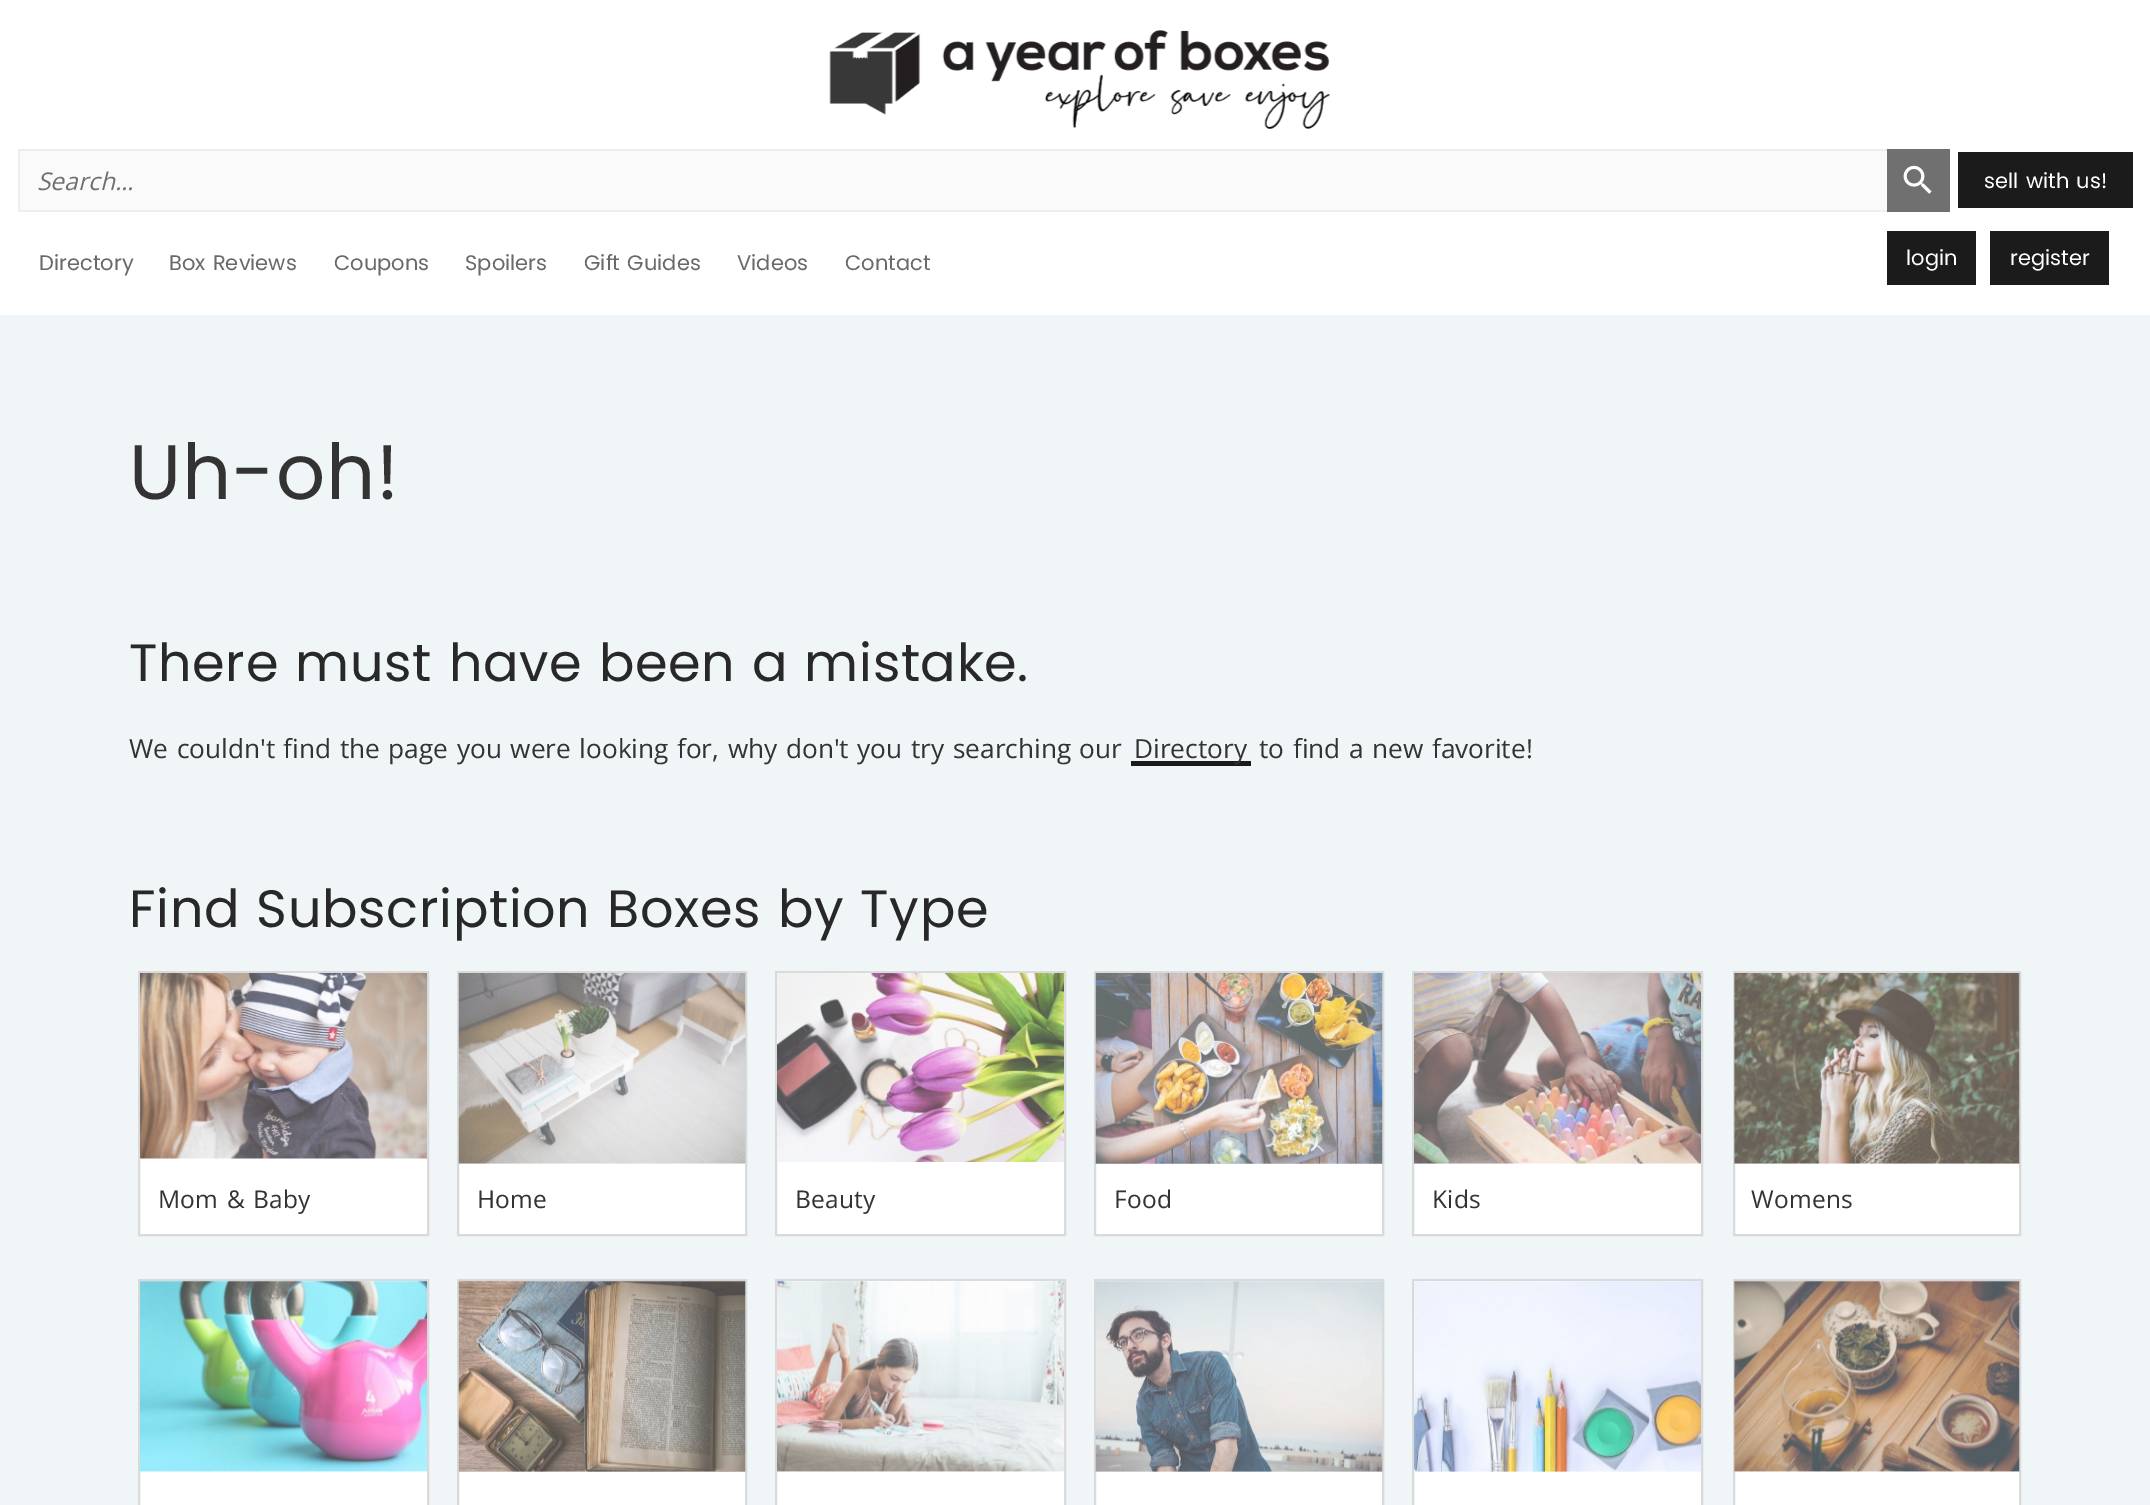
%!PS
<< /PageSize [2150 1505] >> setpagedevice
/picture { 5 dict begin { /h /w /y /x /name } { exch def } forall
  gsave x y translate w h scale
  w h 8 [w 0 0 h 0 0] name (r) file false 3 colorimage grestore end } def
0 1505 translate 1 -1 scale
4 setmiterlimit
0.941 0.961 0.969 setrgbcolor
0 0 2150 1505 rectfill
1 setgray
0 0 2150 315 rectfill
(img1.rgb) 829 30 501 99 picture
0.98 setgray
20 151 1867 59 rectfill
0.933 setgray
18 149 1869 2 rectfill
18 210 1869 2 rectfill
18 149 2 63 rectfill
/OpenSans-Italic [24.5 0 0 -24.5 0 0] selectfont
0.439 setgray
37 190 moveto (Search...) show
1887 149 63 63 rectfill
(img2.rgb) 1903 165 29 29 picture
0.106 setgray
1958 152 175 56 rectfill
/Poppins-Regular [21 0 0 -21 0 0] selectfont
1 setgray
1984 188 moveto 1.75 0 32 (sell with us!) widthshow
0.412 setgray
39 270 moveto (Directory) show
169 270 moveto 1.75 0 32 (Box Reviews) widthshow
334 270 moveto (Coupons) show
465 270 moveto (Spoilers) show
584 270 moveto 1.75 0 32 (Gift Guides) widthshow
737 270 moveto (Videos) show
845 270 moveto (Contact) show
0.106 setgray
1887 231 89 54 rectfill
1 setgray
1906 265 moveto (login) show
0.106 setgray
1990 231 119 54 rectfill
1 setgray
2010 265 moveto (register) show
/Poppins-Regular [77 0 0 -77 0 0] selectfont
0.2 setgray
129 499 moveto 1 0 (Uh-oh!) ashow
/Poppins-Regular [52.5 0 0 -52.5 0 0] selectfont
0.157 setgray
129 681 moveto 1.75 0 32 0.65 0 (There must have been a mistake.) awidthshow
/OpenSans-Regular [26.25 0 0 -26.25 0 0] selectfont
0.2 setgray
129 758 moveto 1.75 0 32 (We couldn't find the page you were looking for, why don't you try searching our) widthshow
0.106 setgray
1131 761 120 5 rectfill
0.2 setgray
1134 758 moveto (Directory) show
1259 758 moveto 1.75 0 32 (to find a new favorite!) widthshow
/Poppins-Regular [52.5 0 0 -52.5 0 0] selectfont
0.157 setgray
129 927 moveto 1.75 0 32 0.65 0 (Find Subscription Boxes by Type) awidthshow
1 setgray
newpath 139 972 moveto 428 972 lineto 428 1235 lineto 139 1235 lineto closepath gsave fill grestore
0.855 setgray
2 setlinewidth
stroke
(img3.rgb) 140 973 287 186 picture
/OpenSans-Regular [24.5 0 0 -24.5 0 0] selectfont
0.2 setgray
158 1208 moveto 1.75 0 32 0.25 0 (Mom & Baby) awidthshow
1 setgray
newpath 458 972 moveto 746 972 lineto 746 1235 lineto 458 1235 lineto closepath gsave fill grestore
0.855 setgray
stroke
(img4.rgb) 458 973 288 191 picture
0.2 setgray
477 1208 moveto 0.25 0 (Home) ashow
1 setgray
newpath 776 972 moveto 1065 972 lineto 1065 1235 lineto 776 1235 lineto closepath gsave fill grestore
0.855 setgray
stroke
(img5.rgb) 777 973 287 189 picture
0.2 setgray
795 1208 moveto 0.25 0 (Beauty) ashow
1 setgray
newpath 1095 972 moveto 1383 972 lineto 1383 1235 lineto 1095 1235 lineto closepath gsave fill grestore
0.855 setgray
stroke
(img6.rgb) 1095 973 288 191 picture
0.2 setgray
1114 1208 moveto 0.25 0 (Food) ashow
1 setgray
newpath 1413 972 moveto 1702 972 lineto 1702 1235 lineto 1413 1235 lineto closepath gsave fill grestore
0.855 setgray
stroke
(img7.rgb) 1414 973 287 191 picture
0.2 setgray
1432 1208 moveto 0.25 0 (Kids) ashow
1 setgray
newpath 1734 972 moveto 2020 972 lineto 2020 1235 lineto 1734 1235 lineto closepath gsave fill grestore
0.855 setgray
stroke
(img8.rgb) 1734 973 286 191 picture
0.2 setgray
1751 1208 moveto 0.25 0 (Womens) ashow
1 setgray
newpath 139 1280 moveto 428 1280 lineto 428 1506 lineto 139 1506 lineto closepath gsave fill grestore
0.855 setgray
stroke
(img9.rgb) 140 1280 287 192 picture
1 setgray
newpath 458 1280 moveto 746 1280 lineto 746 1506 lineto 458 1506 lineto closepath gsave fill grestore
0.855 setgray
stroke
(img10.rgb) 458 1280 288 192 picture
1 setgray
newpath 776 1280 moveto 1065 1280 lineto 1065 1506 lineto 776 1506 lineto closepath gsave fill grestore
0.855 setgray
stroke
(img11.rgb) 777 1280 287 192 picture
1 setgray
newpath 1095 1280 moveto 1383 1280 lineto 1383 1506 lineto 1095 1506 lineto closepath gsave fill grestore
0.855 setgray
stroke
(img12.rgb) 1095 1281 288 191 picture
1 setgray
newpath 1413 1280 moveto 1702 1280 lineto 1702 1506 lineto 1413 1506 lineto closepath gsave fill grestore
0.855 setgray
stroke
(img13.rgb) 1414 1281 287 191 picture
1 setgray
newpath 1734 1280 moveto 2020 1280 lineto 2020 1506 lineto 1734 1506 lineto closepath gsave fill grestore
0.855 setgray
stroke
(img14.rgb) 1734 1280 286 192 picture
showpage
